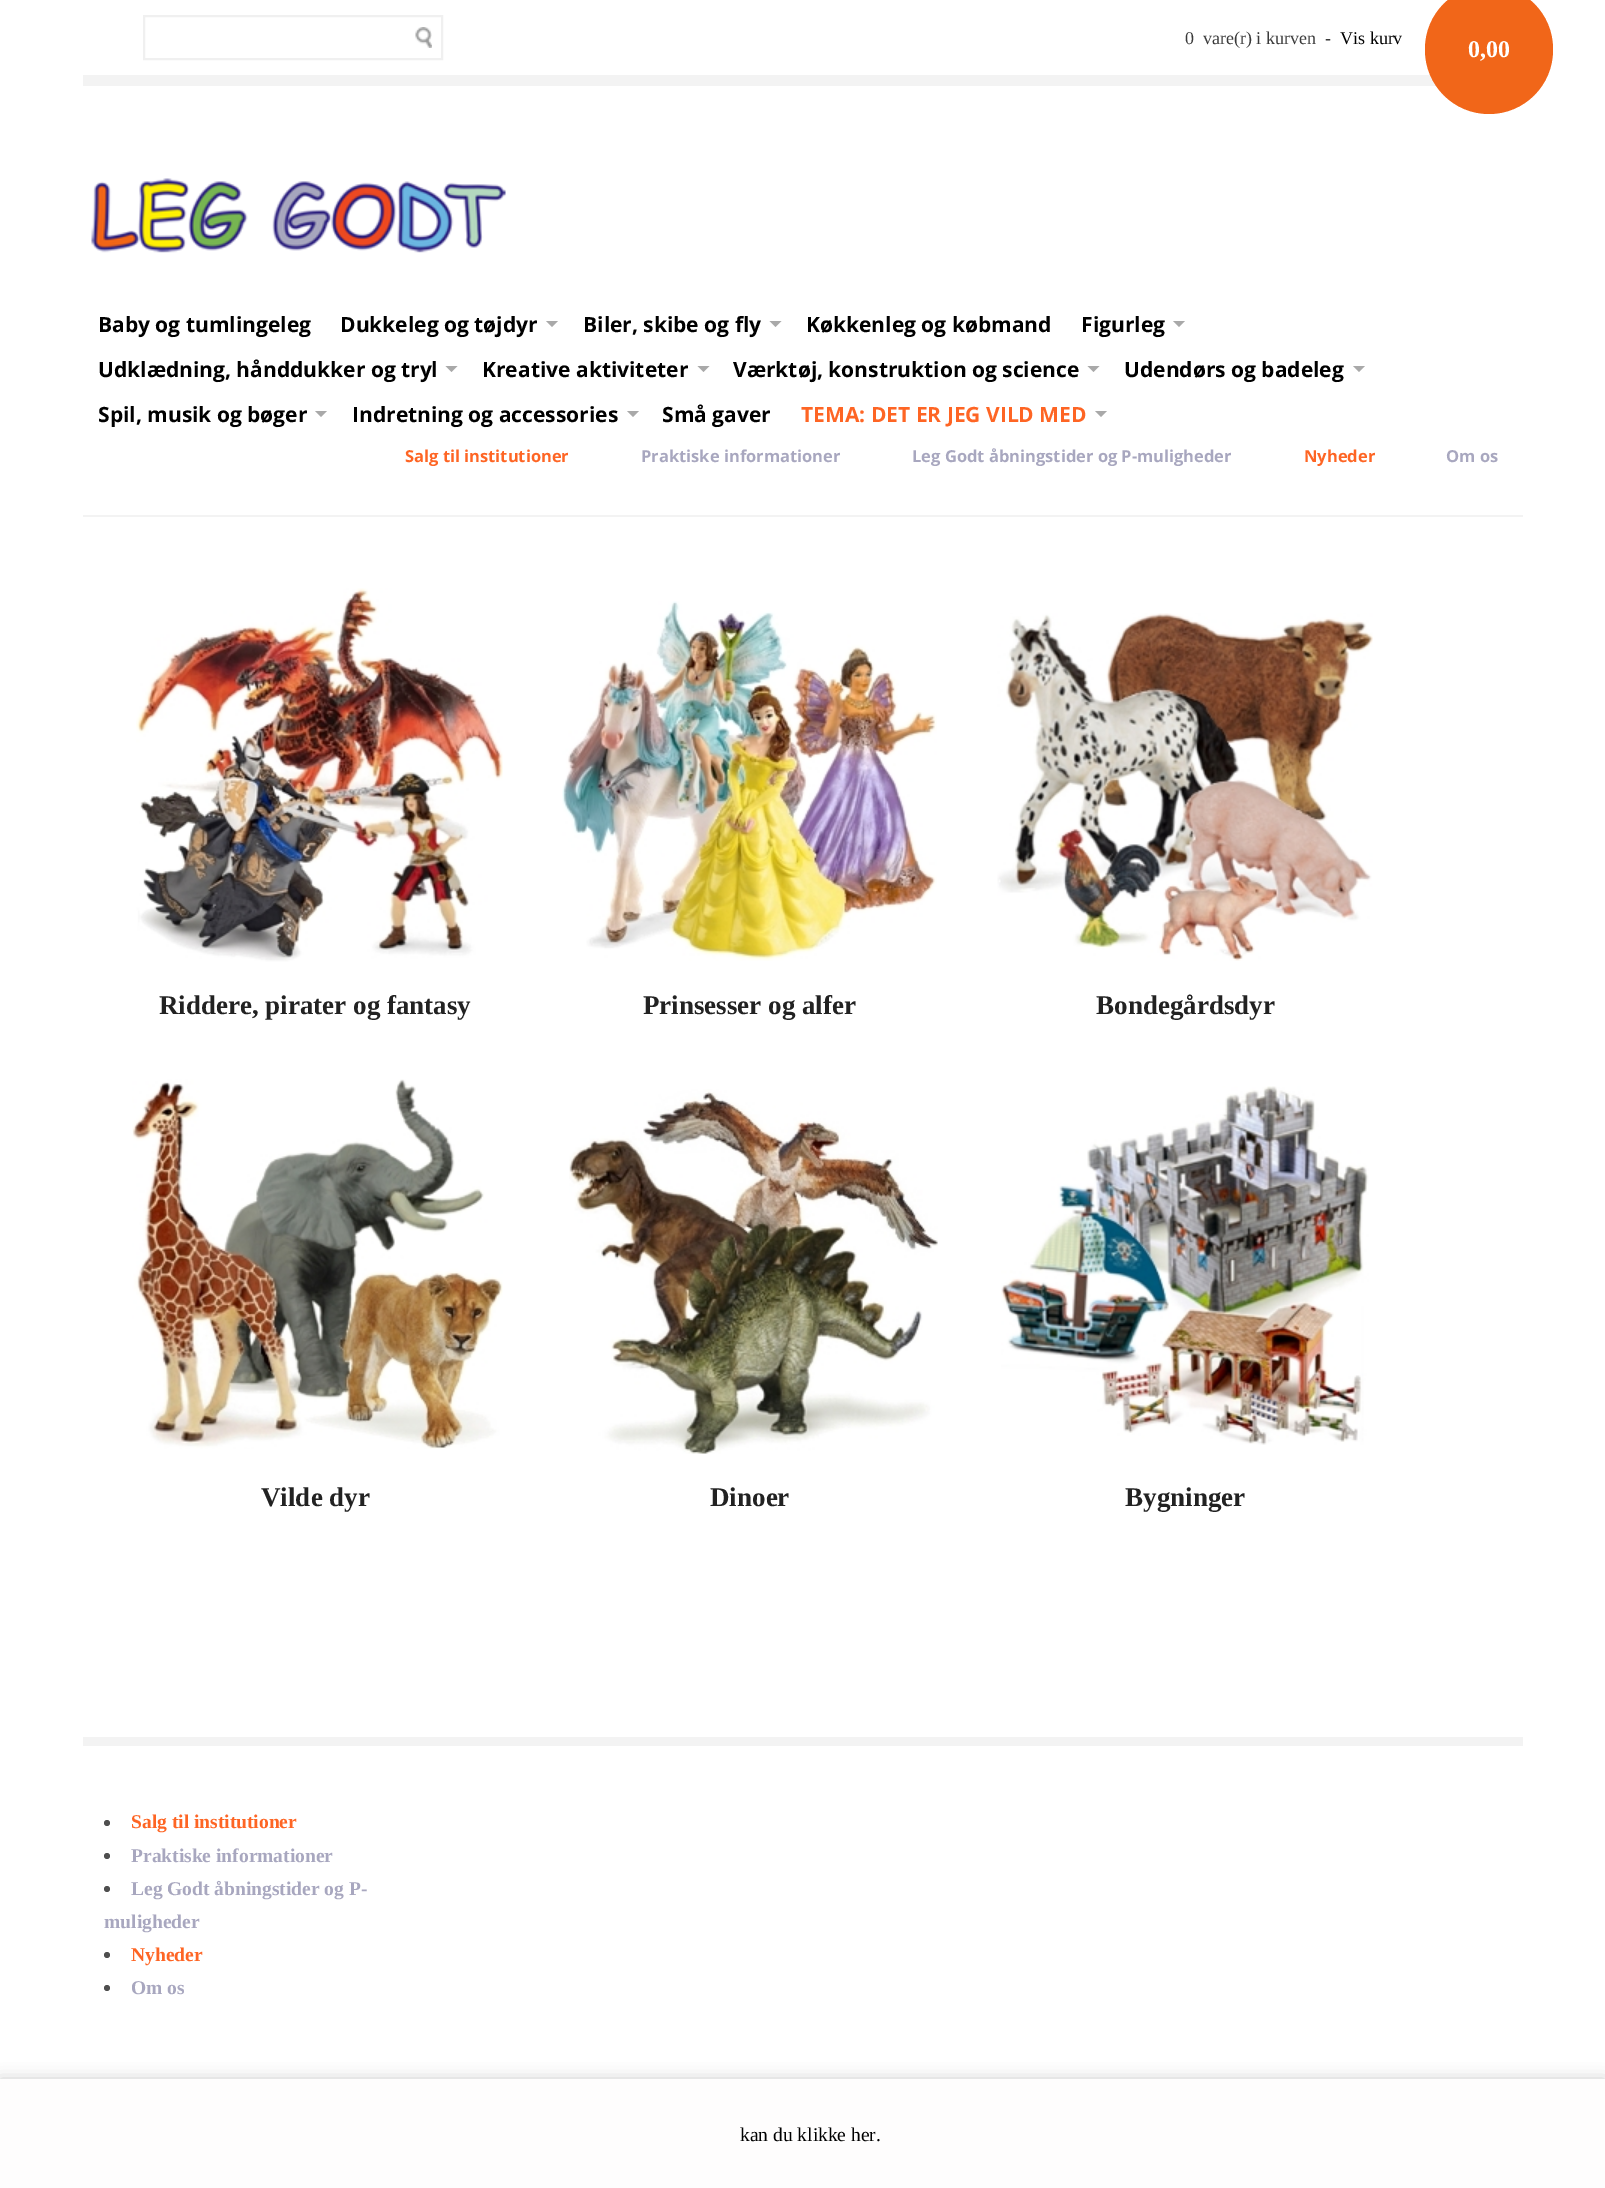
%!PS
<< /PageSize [1605 2188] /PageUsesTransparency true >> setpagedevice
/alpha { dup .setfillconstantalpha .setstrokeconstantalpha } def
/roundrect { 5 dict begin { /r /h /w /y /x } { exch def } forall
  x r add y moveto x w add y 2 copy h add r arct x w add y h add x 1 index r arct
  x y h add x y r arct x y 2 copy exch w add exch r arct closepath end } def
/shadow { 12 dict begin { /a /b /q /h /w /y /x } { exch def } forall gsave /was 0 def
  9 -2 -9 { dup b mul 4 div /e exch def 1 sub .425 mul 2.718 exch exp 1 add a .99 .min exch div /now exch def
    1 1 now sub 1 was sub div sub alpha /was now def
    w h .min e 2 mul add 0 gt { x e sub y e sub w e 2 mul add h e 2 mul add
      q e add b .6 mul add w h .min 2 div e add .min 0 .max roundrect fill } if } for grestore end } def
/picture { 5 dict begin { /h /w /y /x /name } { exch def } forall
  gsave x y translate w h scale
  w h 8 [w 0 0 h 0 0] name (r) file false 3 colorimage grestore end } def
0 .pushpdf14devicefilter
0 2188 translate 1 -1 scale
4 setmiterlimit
1 setgray
0 0 1605 2188 rectfill
0.953 setgray
83 75 1353 11 rectfill
(img1.rgb) 415 27 17 21 picture
0.941 setgray
2 setlinewidth
144 16 298 43 rectstroke
/LiberationSerif-Regular [18 0 0 -18 0 0] selectfont
0.227 setgray
1185 44 moveto (0) show
1203 44 moveto (vare\(r\) i kurven) show
1325 44 moveto (-) show
0 setgray
1340 44 moveto (Vis kurv) show
0.945 0.4 0.098 setrgbcolor
1425 -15 128 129 64 roundrect fill
/LiberationSerif-Bold [24 0 0 -24 0 0] selectfont
1 setgray
1468 57 moveto (0,00) show
0.953 setgray
83 515 1440 2 rectfill
(img2.rgb) 91 178 415 75 picture
/OpenSans-Bold [21 0 0 -21 0 0] selectfont
0 setgray
98 332 moveto (Baby og tumlingeleg) show
340 332 moveto (Dukkeleg og tøjdyr) show
0.663 setgray
newpath 546 321 moveto 558 321 lineto 552 327 lineto closepath fill
0 setgray
583 332 moveto (Biler, skibe og fly) show
0.663 setgray
newpath 769.5 321 moveto 781.5 321 lineto 775.5 327 lineto closepath fill
0 setgray
806 332 moveto (Køkkenleg og købmand) show
1081 332 moveto (Figurleg) show
0.663 setgray
newpath 1173 321 moveto 1185 321 lineto 1179 327 lineto closepath fill
0 setgray
98 377 moveto (Udklædning, hånddukker og tryl) show
0.663 setgray
newpath 445.5 366 moveto 457.5 366 lineto 451.5 372 lineto closepath fill
0 setgray
482 377 moveto (Kreative aktiviteter) show
0.663 setgray
newpath 697.5 366 moveto 709.5 366 lineto 703.5 372 lineto closepath fill
0 setgray
733 377 moveto (Værktøj, konstruktion og science) show
0.663 setgray
newpath 1087.5 366 moveto 1099.5 366 lineto 1093.5 372 lineto closepath fill
0 setgray
1124 377 moveto (Udendørs og badeleg) show
0.663 setgray
newpath 1353 366 moveto 1365 366 lineto 1359 372 lineto closepath fill
0 setgray
98 422 moveto (Spil, musik og bøger) show
0.663 setgray
newpath 315 411 moveto 327 411 lineto 321 417 lineto closepath fill
0 setgray
352 422 moveto (Indretning og accessories) show
0.663 setgray
newpath 627 411 moveto 639 411 lineto 633 417 lineto closepath fill
0 setgray
662 422 moveto (Små gaver) show
0.996 0.396 0.141 setrgbcolor
801 422 moveto (TEMA: DET ER JEG VILD MED) show
0.663 setgray
newpath 1095 411 moveto 1107 411 lineto 1101 417 lineto closepath fill
/OpenSans-Bold [16.5 0 0 -16.5 0 0] selectfont
0.996 0.396 0.141 setrgbcolor
405 462 moveto (Salg til institutioner) show
0.659 0.655 0.749 setrgbcolor
641 462 moveto (Praktiske informationer) show
912 462 moveto (Leg Godt åbningstider og P-muligheder) show
0.996 0.396 0.141 setrgbcolor
1304 462 moveto (Nyheder) show
0.659 0.655 0.749 setrgbcolor
1446 462 moveto (Om os) show
(img3.rgb) 136 588 367 374 picture
/LiberationSerif-Bold [27 0 0 -27 0 0] selectfont
0.133 setgray
159 1014 moveto (Riddere, pirater og fantasy) show
(img4.rgb) 562 601 375 360 picture
643 1014 moveto (Prinsesser og alfer) show
(img5.rgb) 997 613 376 348 picture
1096 1014 moveto (Bondegårdsdyr) show
(img6.rgb) 132 1079 371 370 picture
261 1506 moveto (Vilde dyr) show
(img7.rgb) 569 1089 369 365 picture
710 1506 moveto (Dinoer) show
(img8.rgb) 1001 1086 368 359 picture
1125 1506 moveto (Bygninger) show
0.953 setgray
83 1737 1440 9 rectfill
0.31 setgray
newpath 107 1823 3 0 360 arc closepath fill
/LiberationSerif-Bold [19.5 0 0 -19.5 0 0] selectfont
0.996 0.396 0.141 setrgbcolor
131 1828 moveto (Salg til institutioner) show
0.31 setgray
newpath 107 1856 3 0 360 arc closepath fill
0.659 0.655 0.749 setrgbcolor
131 1862 moveto (Praktiske informationer) show
0.31 setgray
newpath 107 1889 3 0 360 arc closepath fill
0.659 0.655 0.749 setrgbcolor
131 1895 moveto (Leg Godt åbningstider og P-) show
104 1928 moveto (muligheder) show
0.31 setgray
newpath 107 1955 3 0 360 arc closepath fill
0.996 0.396 0.141 setrgbcolor
131 1961 moveto (Nyheder) show
0.31 setgray
newpath 107 1988 3 0 360 arc closepath fill
0.659 0.655 0.749 setrgbcolor
131 1994 moveto (Om os) show
0.8 setgray
0 2079 1605 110 0 7.5 1 shadow
0.996 0.992 0.992 setrgbcolor
0 2079 1605 109 rectfill
/LiberationSerif-Regular [19.5 0 0 -19.5 0 0] selectfont
0 setgray
740 2141 moveto (kan du klikke her.) show
.poppdf14devicefilter showpage
